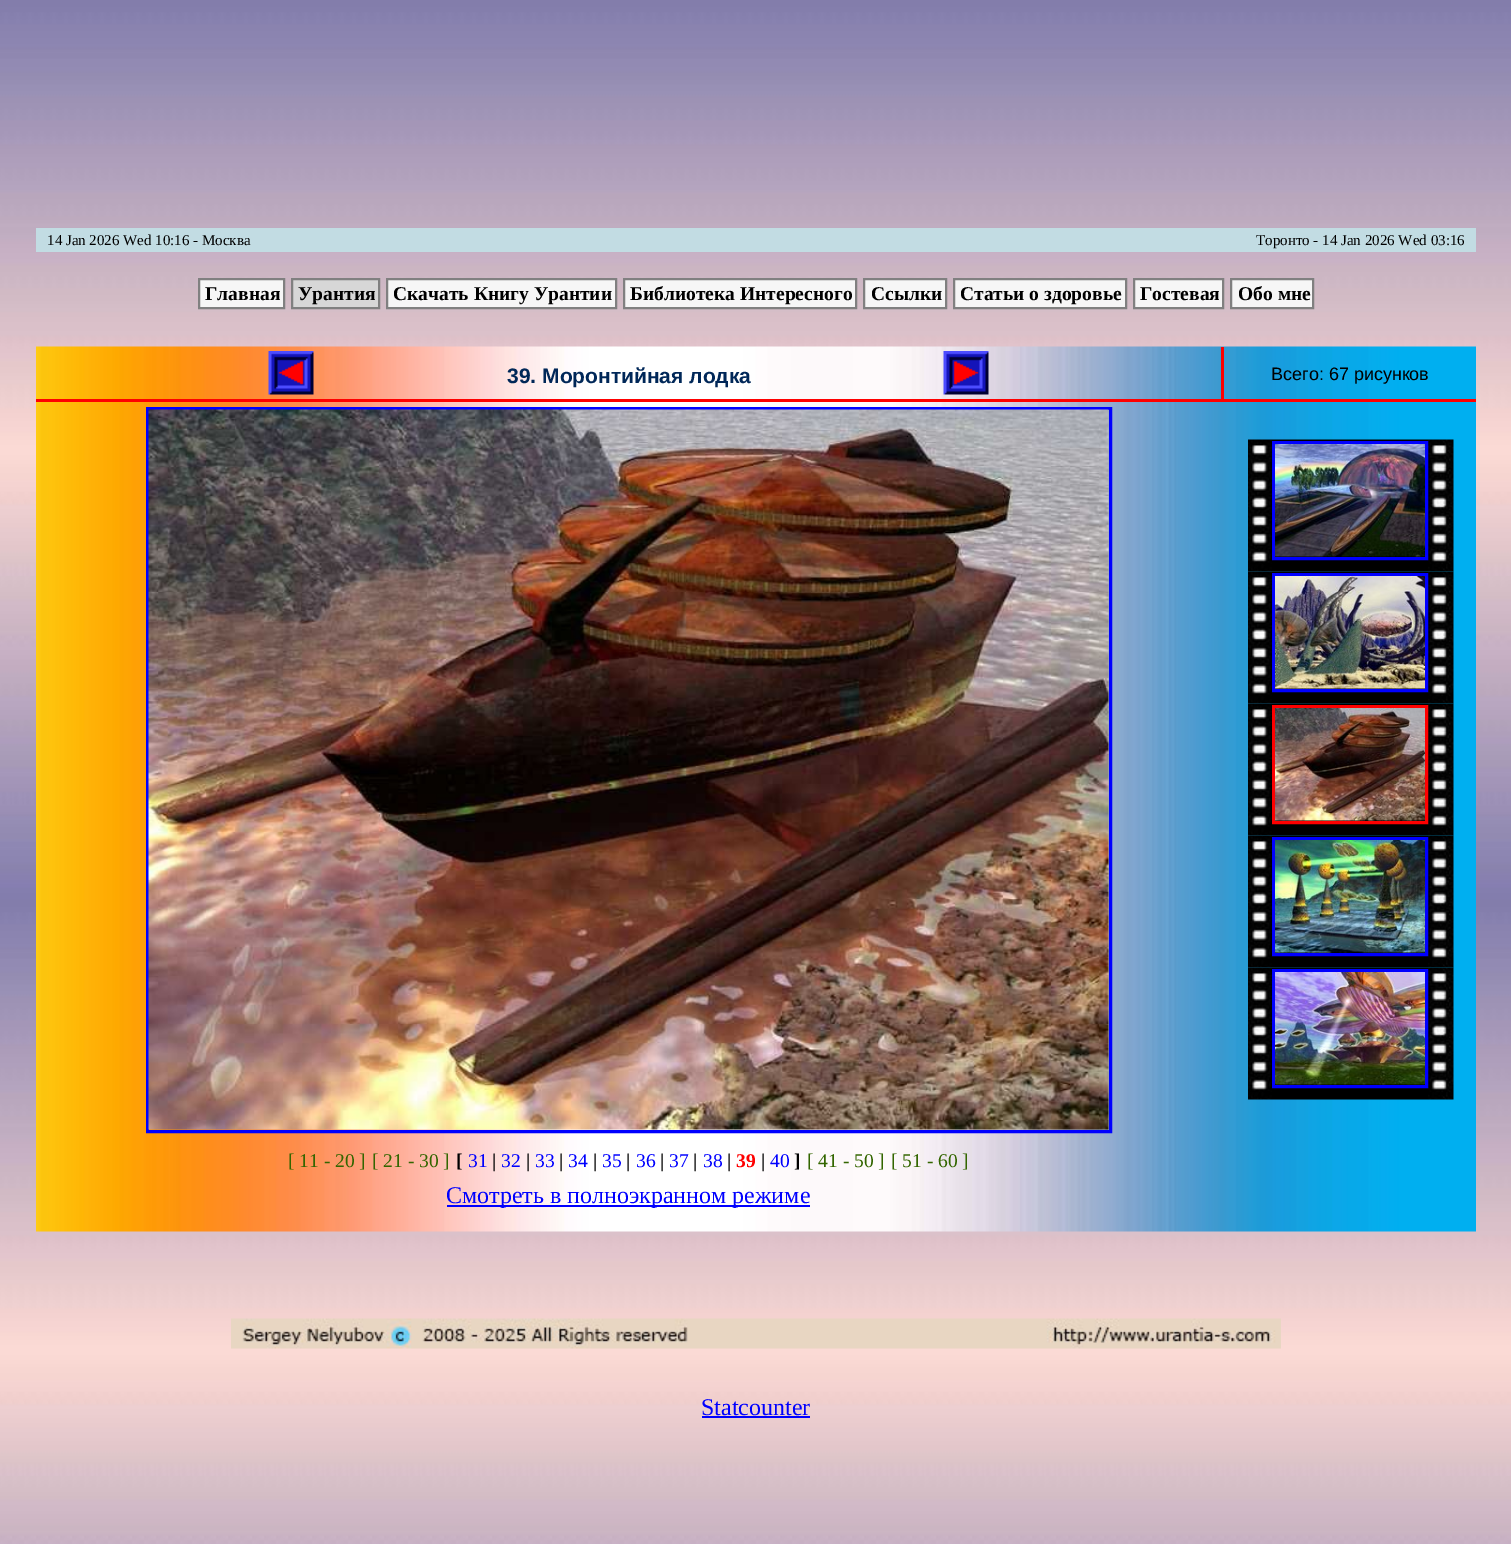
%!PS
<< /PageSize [1511 1544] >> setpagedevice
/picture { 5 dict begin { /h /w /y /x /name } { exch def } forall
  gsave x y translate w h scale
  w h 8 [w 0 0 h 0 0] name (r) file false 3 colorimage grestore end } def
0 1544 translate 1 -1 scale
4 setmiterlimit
1 setgray
0 0 1511 1544 rectfill
(img1.rgb) 0 0 1511 1544 picture
0.761 0.863 0.89 setrgbcolor
36 228 1440 24 rectfill
/LiberationSerif-Regular [15 0 0 -15 0 0] selectfont
0 setgray
47 245 moveto (14 Jan 2026 Wed 10:16 - Москва) show
1256 245 moveto (Торонто - 14 Jan 2026 Wed 03:16) show
0.965 setgray
newpath 199 279 moveto 284 279 lineto 284 308 lineto 199 308 lineto closepath gsave fill grestore
0.502 setgray
2 setlinewidth
stroke
/LiberationSerif-Bold [19.5 0 0 -19.5 0 0] selectfont
0 setgray
205 300 moveto (Главная) show
0.843 setgray
newpath 292 279 moveto 379 279 lineto 379 308 lineto 292 308 lineto closepath gsave fill grestore
0.502 setgray
stroke
0 setgray
298 300 moveto (Урантия) show
0.965 setgray
newpath 387 279 moveto 616 279 lineto 616 308 lineto 387 308 lineto closepath gsave fill grestore
0.502 setgray
stroke
0 setgray
393 300 moveto (Скачать Книгу Урантии) show
0.965 setgray
newpath 624 279 moveto 856 279 lineto 856 308 lineto 624 308 lineto closepath gsave fill grestore
0.502 setgray
stroke
0 setgray
630 300 moveto (Библиотека Интересного) show
0.965 setgray
newpath 864 279 moveto 946 279 lineto 946 308 lineto 864 308 lineto closepath gsave fill grestore
0.502 setgray
stroke
0 setgray
871 300 moveto (Ссылки) show
0.965 setgray
newpath 954 279 moveto 1126 279 lineto 1126 308 lineto 954 308 lineto closepath gsave fill grestore
0.502 setgray
stroke
0 setgray
960 300 moveto (Статьи о здоровье) show
0.965 setgray
newpath 1134 279 moveto 1223 279 lineto 1223 308 lineto 1134 308 lineto closepath gsave fill grestore
0.502 setgray
stroke
0 setgray
1140 300 moveto (Гостевая) show
0.965 setgray
newpath 1231 279 moveto 1313 279 lineto 1313 308 lineto 1231 308 lineto closepath gsave fill grestore
0.502 setgray
stroke
0 setgray
1238 300 moveto (Обо мне) show
(img2.rgb) 36 346 1440 886 picture
1 0 0 setrgbcolor
1221 347 3 55 rectfill
36 399 1440 3 rectfill
(img3.rgb) 268 351 46 44 picture
/LiberationSans-Bold [21 0 0 -21 0 0] selectfont
0 0.153 0.345 setrgbcolor
507 383 moveto (39. Моронтийная лодка) show
(img4.rgb) 943 351 46 44 picture
0 0 1 setrgbcolor
3 setlinewidth
147.5 408.5 963 723 rectstroke
(img5.rgb) 148 409 961 721 picture
/LiberationSerif-Regular [19.5 0 0 -19.5 0 0] selectfont
0.2 0.4 0 setrgbcolor
288 1167 moveto ([ 11 - 20 ]) show
372 1167 moveto ([ 21 - 30 ]) show
/LiberationSerif-Bold [19.5 0 0 -19.5 0 0] selectfont
0 setgray
456 1167 moveto ([) show
/LiberationSerif-Regular [19.5 0 0 -19.5 0 0] selectfont
0 0 1 setrgbcolor
468 1167 moveto (31) show
/LiberationSerif-Bold [19.5 0 0 -19.5 0 0] selectfont
0 setgray
492 1167 moveto (|) show
/LiberationSerif-Regular [19.5 0 0 -19.5 0 0] selectfont
0 0 1 setrgbcolor
501 1167 moveto (32) show
/LiberationSerif-Bold [19.5 0 0 -19.5 0 0] selectfont
0 setgray
526 1167 moveto (|) show
/LiberationSerif-Regular [19.5 0 0 -19.5 0 0] selectfont
0 0 1 setrgbcolor
535 1167 moveto (33) show
/LiberationSerif-Bold [19.5 0 0 -19.5 0 0] selectfont
0 setgray
559 1167 moveto (|) show
/LiberationSerif-Regular [19.5 0 0 -19.5 0 0] selectfont
0 0 1 setrgbcolor
568 1167 moveto (34) show
/LiberationSerif-Bold [19.5 0 0 -19.5 0 0] selectfont
0 setgray
593 1167 moveto (|) show
/LiberationSerif-Regular [19.5 0 0 -19.5 0 0] selectfont
0 0 1 setrgbcolor
602 1167 moveto (35) show
/LiberationSerif-Bold [19.5 0 0 -19.5 0 0] selectfont
0 setgray
626 1167 moveto (|) show
/LiberationSerif-Regular [19.5 0 0 -19.5 0 0] selectfont
0 0 1 setrgbcolor
636 1167 moveto (36) show
/LiberationSerif-Bold [19.5 0 0 -19.5 0 0] selectfont
0 setgray
660 1167 moveto (|) show
/LiberationSerif-Regular [19.5 0 0 -19.5 0 0] selectfont
0 0 1 setrgbcolor
669 1167 moveto (37) show
/LiberationSerif-Bold [19.5 0 0 -19.5 0 0] selectfont
0 setgray
693 1167 moveto (|) show
/LiberationSerif-Regular [19.5 0 0 -19.5 0 0] selectfont
0 0 1 setrgbcolor
703 1167 moveto (38) show
/LiberationSerif-Bold [19.5 0 0 -19.5 0 0] selectfont
0 setgray
727 1167 moveto (|) show
1 0 0 setrgbcolor
736 1167 moveto (39) show
0 setgray
761 1167 moveto (|) show
/LiberationSerif-Regular [19.5 0 0 -19.5 0 0] selectfont
0 0 1 setrgbcolor
770 1167 moveto (40) show
/LiberationSerif-Bold [19.5 0 0 -19.5 0 0] selectfont
0 setgray
794 1167 moveto (]) show
/LiberationSerif-Regular [19.5 0 0 -19.5 0 0] selectfont
0.2 0.4 0 setrgbcolor
807 1167 moveto ([ 41 - 50 ]) show
891 1167 moveto ([ 51 - 60 ]) show
0 0 1 setrgbcolor
447 1205 363 2 rectfill
/LiberationSerif-Regular [24 0 0 -24 0 0] selectfont
446 1203 moveto (Смотреть в полноэкранном режиме) show
/LiberationSans-Regular [18 0 0 -18 0 0] selectfont
0 setgray
1271 380 moveto (Всего: 67 рисунков) show
(img6.rgb) 1248 439 206 133 picture
0 0 1 setrgbcolor
1273.5 442.5 153 116 rectstroke
(img7.rgb) 1275 444 150 113 picture
(img8.rgb) 1248 571 206 133 picture
1273.5 574.5 153 116 rectstroke
(img9.rgb) 1275 576 150 113 picture
(img10.rgb) 1248 703 206 133 picture
1 0 0 setrgbcolor
1273.5 706.5 153 116 rectstroke
(img11.rgb) 1275 708 150 113 picture
(img8.rgb) 1248 835 206 133 picture
0 0 1 setrgbcolor
1273.5 838.5 153 116 rectstroke
(img12.rgb) 1275 840 150 113 picture
(img8.rgb) 1248 967 206 133 picture
1273.5 970.5 153 116 rectstroke
(img13.rgb) 1275 972 150 113 picture
(img14.rgb) 231 1318 1050 31 picture
/LiberationSerif-Regular [24 0 0 -24 0 0] selectfont
701 1415 moveto (Statcounter) show
702 1416 108 2 rectfill
showpage
